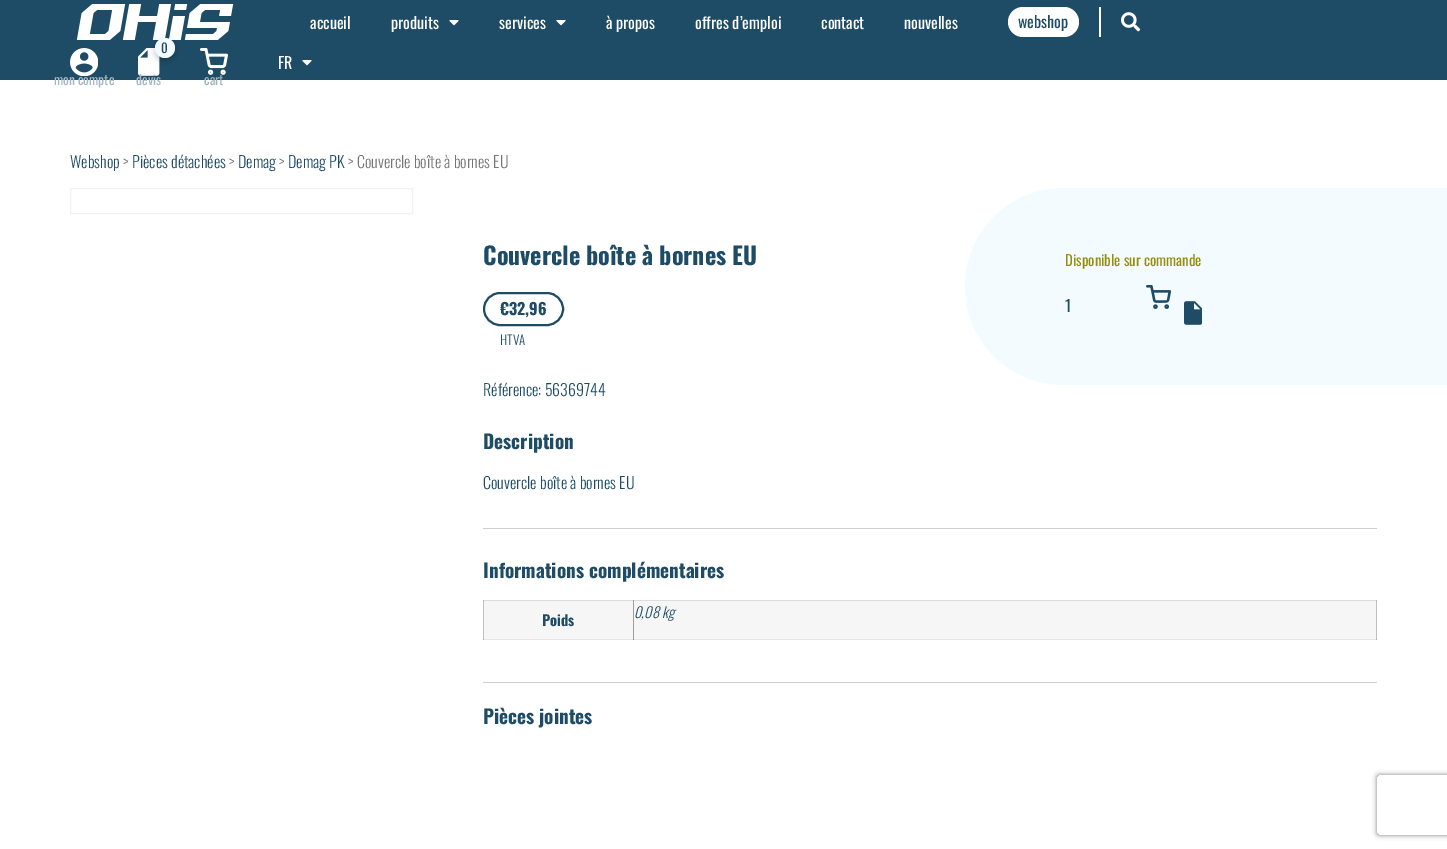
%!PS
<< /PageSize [1447 849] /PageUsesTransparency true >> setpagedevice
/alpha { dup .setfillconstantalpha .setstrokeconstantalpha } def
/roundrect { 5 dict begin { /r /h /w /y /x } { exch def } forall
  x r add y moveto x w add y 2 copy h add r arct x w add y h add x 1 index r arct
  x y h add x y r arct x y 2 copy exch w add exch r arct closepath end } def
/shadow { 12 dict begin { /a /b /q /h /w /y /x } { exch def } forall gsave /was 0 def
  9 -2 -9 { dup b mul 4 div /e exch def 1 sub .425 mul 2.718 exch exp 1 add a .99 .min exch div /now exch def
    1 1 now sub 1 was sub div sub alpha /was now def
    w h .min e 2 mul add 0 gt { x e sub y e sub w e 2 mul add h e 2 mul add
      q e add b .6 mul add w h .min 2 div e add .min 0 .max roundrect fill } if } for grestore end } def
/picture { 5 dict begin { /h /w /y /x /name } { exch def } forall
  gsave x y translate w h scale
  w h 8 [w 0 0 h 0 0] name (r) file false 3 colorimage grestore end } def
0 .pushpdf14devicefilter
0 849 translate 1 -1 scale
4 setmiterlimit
1 setgray
0 0 1447 849 rectfill
0.753 setgray
483 600 1 40 rectfill
0.902 setgray
483 639 894 1 rectfill
0.702 setgray
483 639 1 1 rectfill
0.545 setgray
633 639 1 1 rectfill
0.753 setgray
1376 600 1 40 rectfill
0.678 setgray
1376 639 1 1 rectfill
0.702 setgray
483 600 1 1 rectfill
1376 600 1 1 rectfill
0.118 0.298 0.4 setrgbcolor
0 0 1447 80 rectfill
(img1.rgb) 76 4 158 36 picture
/Oswald-Regular [16 0 0 -16 0 0] selectfont
1 setgray
310 29 moveto (accueil) show
391 29 moveto (produits) show
(img2.rgb) 449 20 10 6 picture
499 29 moveto (services) show
(img2.rgb) 556 20 10 6 picture
606 29 moveto (à propos) show
695 29 moveto (offres d’emploi) show
821 29 moveto (contact) show
904 29 moveto (nouvelles) show
1008 7 71 30 15 roundrect fill
0.118 0.298 0.4 setrgbcolor
1018 28 moveto (webshop) show
1 setgray
1099 7 2 30 rectfill
(img3.rgb) 1121 12 20 20 picture
(img5.rgb) 138 48 22 28 picture
0 setgray
155 41 20 20 10 3 0.2 shadow
0.953 0.984 1 setrgbcolor
newpath 165 48 10 0 360 arc closepath fill
/Oswald-Regular [13 0 0 -13 0 0] selectfont
0.118 0.298 0.4 setrgbcolor
161 53 moveto (0) show
(img4.rgb) 70 48 28 28 picture
/Oswald-Regular [13.5 0 0 -13.5 0 0] selectfont
0.651 0.725 0.765 setrgbcolor
54 85 moveto (mon compte) show
136 85 moveto (devis) show
(img6.rgb) 200 48 28 27 picture
0.62 0.698 0.741 setrgbcolor
204 85 moveto (cart) show
/Oswald-Regular [16 0 0 -16 0 0] selectfont
1 setgray
278 69 moveto (FR) show
(img2.rgb) 302 60 10 6 picture
/Oswald-Light [16 0 0 -16 0 0] selectfont
0.118 0.298 0.4 setrgbcolor
70 168 moveto (Webshop) show
0.463 setgray
123 168 moveto (>) show
0.118 0.298 0.4 setrgbcolor
132 168 moveto (Pièces détachées) show
0.463 setgray
229 168 moveto (>) show
0.118 0.298 0.4 setrgbcolor
238 168 moveto (Demag) show
0.463 setgray
279 168 moveto (>) show
0.118 0.298 0.4 setrgbcolor
288 168 moveto (Demag PK) show
0.463 setgray
348 168 moveto (> Couvercle boîte à bornes EU) show
0.949 setgray
70.5 188.5 342 25 rectstroke
/Oswald-Bold [24 0 0 -24 0 0] selectfont
0.118 0.298 0.4 setrgbcolor
483 265 moveto (Couvercle boîte à bornes EU) show
2 setlinewidth
484 293 79 32 16 roundrect stroke
/Oswald-Bold [16 0 0 -16 0 0] selectfont
500 315 moveto (€32,96) show
/Oswald-Light [13 0 0 -13 0 0] selectfont
500 345 moveto (HTVA) show
/Oswald-Light [16 0 0 -16 0 0] selectfont
483 396 moveto (Référence: 56369744) show
0.953 0.984 1 setrgbcolor
newpath 1063.5 188 moveto 1447 188 lineto 1447 385 lineto 1063.5 385 lineto 1009 385 965 341 965 286.5 curveto 965 232 1009 188 1063.5 188 curveto closepath fill
/Oswald-Regular [14.75 0 0 -14.75 0 0] selectfont
0.584 0.557 0.035 setrgbcolor
1065 266 moveto (Disponible sur commande) show
/Oswald-Regular [16 0 0 -16 0 0] selectfont
0.118 0.298 0.4 setrgbcolor
1065 312 moveto (1) show
(img7.rgb) 1146 285 25 24 picture
(img8.rgb) 1184 301 18 24 picture
/Oswald-Bold [19.25 0 0 -19.25 0 0] selectfont
483 449 moveto (Description) show
/Oswald-Light [16 0 0 -16 0 0] selectfont
483 489 moveto (Couvercle boîte à bornes EU) show
0.827 0.808 0.824 setrgbcolor
483 528 894 1 rectfill
/Oswald-Bold [19.25 0 0 -19.25 0 0] selectfont
0.118 0.298 0.4 setrgbcolor
483 578 moveto (Informations complémentaires) show
0.965 setgray
484 601 149 38 rectfill
0.62 setgray
633 600 1 39 rectfill
0.867 setgray
484 600 892 1 rectfill
0.596 setgray
633 600 1 1 rectfill
/Oswald-Bold [14.5 0 0 -14.5 0 0] selectfont
0.118 0.298 0.4 setrgbcolor
542 626 moveto (Poids) show
0.965 setgray
634 601 742 38 rectfill
/Oswald-LightItalic [14.5 0 0 -14.5 0 0] selectfont
0.118 0.298 0.4 setrgbcolor
634 618 moveto (0,08 kg) show
0.827 0.808 0.824 setrgbcolor
483 682 894 1 rectfill
/Oswald-Bold [19.25 0 0 -19.25 0 0] selectfont
0.118 0.298 0.4 setrgbcolor
483 724 moveto (Pièces jointes) show
gsave
newpath 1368 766 moveto 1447 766 lineto 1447 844 lineto 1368 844 lineto closepath 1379 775 moveto 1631 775 lineto 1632 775 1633 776 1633 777 curveto 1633 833 lineto 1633 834 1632 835 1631 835 curveto 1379 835 lineto 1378 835 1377 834 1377 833 curveto 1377 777 lineto 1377 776 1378 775 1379 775 curveto closepath eoclip newpath
0.502 setgray
1377 775 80 60 2 2.5 1 shadow
grestore
.poppdf14devicefilter showpage
